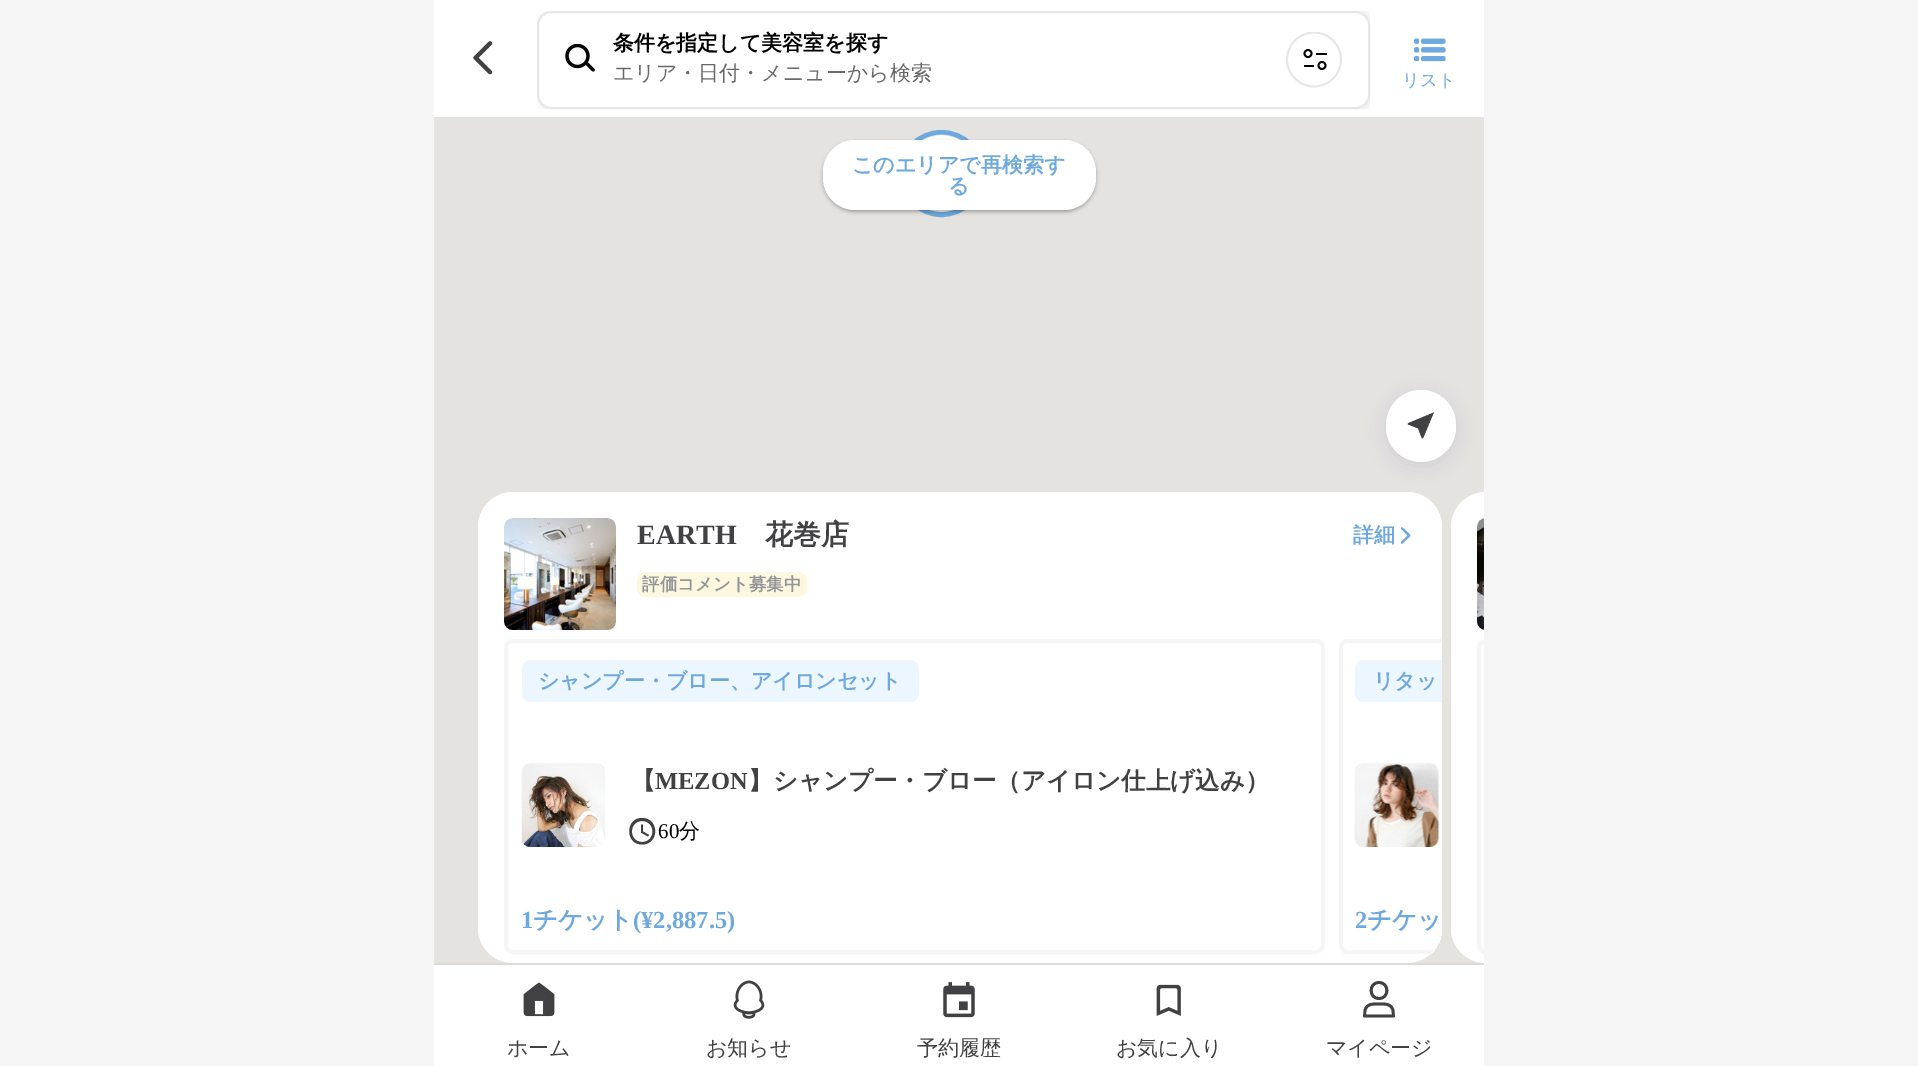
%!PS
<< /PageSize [1918 1066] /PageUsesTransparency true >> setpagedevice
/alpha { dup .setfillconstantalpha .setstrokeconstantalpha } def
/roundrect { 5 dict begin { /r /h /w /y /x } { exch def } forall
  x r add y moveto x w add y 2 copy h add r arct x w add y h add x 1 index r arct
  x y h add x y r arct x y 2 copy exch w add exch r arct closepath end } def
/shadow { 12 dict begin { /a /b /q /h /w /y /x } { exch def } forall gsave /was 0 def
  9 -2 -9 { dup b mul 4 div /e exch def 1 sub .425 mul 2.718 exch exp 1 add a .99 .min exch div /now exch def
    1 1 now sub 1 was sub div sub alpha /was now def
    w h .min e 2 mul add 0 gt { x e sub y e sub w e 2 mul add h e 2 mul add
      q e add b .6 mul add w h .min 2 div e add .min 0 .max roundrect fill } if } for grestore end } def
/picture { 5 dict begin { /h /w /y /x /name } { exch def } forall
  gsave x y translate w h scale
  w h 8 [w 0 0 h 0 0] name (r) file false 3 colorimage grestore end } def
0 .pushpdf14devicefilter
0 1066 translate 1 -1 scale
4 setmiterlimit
0.961 setgray
0 0 1918 1066 rectfill
1 setgray
434 0 1050 117 rectfill
(img1.rgb) 473 41 20 34 picture
0.898 0.89 0.875 setrgbcolor
434 117 1050 846 rectfill
gsave
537 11 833 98 rectclip
newpath 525 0 moveto 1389 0 lineto 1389 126 lineto 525 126 lineto closepath 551 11 moveto 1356 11 lineto 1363.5 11 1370 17.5 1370 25 curveto 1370 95 lineto 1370 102.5 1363.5 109 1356 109 curveto 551 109 lineto 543.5 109 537 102.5 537 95 curveto 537 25 lineto 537 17.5 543.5 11 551 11 curveto closepath eoclip newpath
0 setgray
537 9 840 105 18 3.5 0.05 shadow
grestore
0.902 setgray
2 setlinewidth
538 12 831 96 13 roundrect stroke
(img2.rgb) 565 44 30 28 picture
/WenQuanYiZenHei-Bold [21 0 0 -21 0 0] selectfont
0 setgray
613 50 moveto (条件を指定して美容室を探す) show
/WenQuanYiZenHei-Medium [21 0 0 -21 0 0] selectfont
0.408 setgray
613 80 moveto (エリア・日付・メニューから検索) show
gsave
1286 32 56 56 rectclip
0.902 setgray
1.8 setlinewidth
newpath 1314 59.5 27 0 360 arc closepath stroke
grestore
0 setgray
1.8 setlinewidth
newpath 1308 53.5 3.5 0 360 arc closepath stroke
1316 53 11 2 1 roundrect fill
newpath 1322 65.5 3.5 0 360 arc closepath stroke
1304 65 10 2 1 roundrect fill
(img3.rgb) 1414 38 32 24 picture
/WenQuanYiZenHei-Medium [17.5 0 0 -17.5 0 0] selectfont
0.427 0.659 0.871 setrgbcolor
1402 86 moveto (リスト) show
5 setlinewidth
newpath 941.5 173.5 41 0 360 arc closepath stroke
(img4.rgb) 921 134 40 78 picture
0 setgray
823 142 273 70 32 2 0.3 shadow
1 setgray
823 140 273 70 32 roundrect fill
/WenQuanYiZenHei-Bold [21 0 0 -21 0 0] selectfont
0.427 0.659 0.871 setrgbcolor
852 172 moveto (このエリアで再検索す) show
948 193 moveto (る) show
1 setgray
478 492 964 471 35 roundrect fill
newpath 1486 492 moveto 1484 492 lineto 1484 963 lineto 1486 963 lineto 1466.5 963 1451 947.5 1451 928 curveto 1451 527 lineto 1451 507.5 1466.5 492 1486 492 curveto closepath fill
0.263 0.337 0.392 setrgbcolor
1386 394 70 72 35 9 0.14 shadow
1 setgray
1386 390 70 72 35 roundrect fill
(img5.rgb) 1407 412 28 27 picture
(img6.rgb) 504 518 112 112 picture
/LiberationSerif-Bold [28 0 0 -28 0 0] selectfont
0.255 0.251 0.259 setrgbcolor
637 544 moveto (EARTH) show
/WenQuanYiZenHei-Bold [28 0 0 -28 0 0] selectfont
765 544 moveto (花巻店) show
/WenQuanYiZenHei-Bold [21 0 0 -21 0 0] selectfont
0.427 0.659 0.871 setrgbcolor
1353 542 moveto (詳細) show
newpath 1401 543.5 moveto 1402.5 544.5 1404.5 541.5 1405 541 curveto 1411.5 534.5 1412 537 1406.5 531 curveto 1403.5 528.5 1401 525.5 1401 528.5 curveto 1401 529 1402 530 1402.5 530 curveto 1407.5 535.5 lineto 1401 542 lineto 1401 542.5 1401 543 1401 543.5 curveto closepath eofill
0.996 0.969 0.878 setrgbcolor
637 572 170 25 9 roundrect fill
/WenQuanYiZenHei-Bold [17.5 0 0 -17.5 0 0] selectfont
0.576 0.584 0.596 setrgbcolor
642 590 moveto (評価コメント募集中) show
0.961 setgray
4 setlinewidth
506 641 817 311 7 roundrect stroke
0.925 0.965 0.996 setrgbcolor
522 660 397 42 9 roundrect fill
/WenQuanYiZenHei-Bold [21 0 0 -21 0 0] selectfont
0.427 0.659 0.871 setrgbcolor
538 688 moveto (シャンプー・ブロー、アイロンセット) show
(img7.rgb) 521 763 85 84 picture
/WenQuanYiZenHei-Bold [24.5 0 0 -24.5 0 0] selectfont
0.255 0.251 0.259 setrgbcolor
631 789 moveto (【) show
/LiberationSerif-Bold [24.5 0 0 -24.5 0 0] selectfont
655 789 moveto (MEZON) show
/WenQuanYiZenHei-Bold [24.5 0 0 -24.5 0 0] selectfont
748 789 moveto (】シャンプー・ブロー（アイロン仕上げ込み）) show
newpath 642 818 moveto 659.5 818 659.5 844.5 642 844.5 curveto 625 844.5 625 818 642 818 curveto closepath 642 821 moveto 628.5 821 628.5 842 642 842 curveto 656 842 656 821 642 821 curveto closepath 643 824.5 moveto 643 831.5 lineto 649 835 lineto 648 836.5 lineto 641 832.5 lineto 641 824.5 lineto closepath fill
/LiberationSerif-Regular [21 0 0 -21 0 0] selectfont
0 setgray
658 838 moveto (60) show
/WenQuanYiZenHei-Medium [21 0 0 -21 0 0] selectfont
679 838 moveto (分) show
/LiberationSerif-Bold [24.5 0 0 -24.5 0 0] selectfont
0.427 0.659 0.871 setrgbcolor
521 928 moveto (1) show
/WenQuanYiZenHei-Bold [24.5 0 0 -24.5 0 0] selectfont
533 928 moveto (チケット) show
/LiberationSerif-Bold [24.5 0 0 -24.5 0 0] selectfont
633 928 moveto (\(¥2,887.5\)) show
gsave
478 492 964 471 35 roundrect clip newpath
1 setgray
newpath 1348 639 moveto 1442 639 lineto 1442 954 lineto 1348 954 lineto 1343 954 1339 950 1339 945 curveto 1339 648 lineto 1339 643 1343 639 1348 639 curveto closepath fill
grestore
0.961 setgray
newpath 1348 639 moveto 1343 639 1339 643 1339 648 curveto 1339 945 lineto 1339 950 1343 954 1348 954 curveto 1430 954 lineto 1434 950 lineto 1348 950 lineto 1345 950 1343 948 1343 945 curveto 1343 648 lineto 1343 645 1345 643 1348 643 curveto 1442 643 lineto 1442 639 lineto closepath fill
0.925 0.965 0.996 setrgbcolor
newpath 1364 660 moveto 1442 660 lineto 1442 702 lineto 1364 702 lineto 1359 702 1355 698 1355 693 curveto 1355 669 lineto 1355 664 1359 660 1364 660 curveto closepath fill
/WenQuanYiZenHei-Bold [21 0 0 -21 0 0] selectfont
0.427 0.659 0.871 setrgbcolor
1373 688 moveto (リタッ) show
(img8.rgb) 1354 763 85 84 picture
/LiberationSerif-Bold [24.5 0 0 -24.5 0 0] selectfont
1355 928 moveto (2) show
/WenQuanYiZenHei-Bold [24.5 0 0 -24.5 0 0] selectfont
1367 928 moveto (チケッ) show
(img9.rgb) 1477 518 7 112 picture
gsave
1451 630 33 333 rectclip
0.961 setgray
1479 641 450 311 7 roundrect stroke
grestore
1 setgray
434 965 1050 101 rectfill
0.859 0.855 0.843 setrgbcolor
434 963 1050 2 rectfill
(img10.rgb) 523 982 32 35 picture
/WenQuanYiZenHei-Medium [21 0 0 -21 0 0] selectfont
0.255 0.251 0.259 setrgbcolor
507 1055 moveto (ホーム) show
(img11.rgb) 733 980 32 39 picture
706 1055 moveto (お知らせ) show
(img12.rgb) 943 982 32 36 picture
917 1055 moveto (予約履歴) show
(img13.rgb) 1156 984 25 32 picture
1116 1055 moveto (お気に入り) show
2.8 setlinewidth
1 setlinecap
1 setlinejoin
newpath 1393.5 1016 moveto 1393 1010.5 lineto 1391.5 1003 1384.5 1004 1379 1004 curveto 1373.5 1004 1366.5 1003 1365 1010.5 curveto 1364.5 1016 lineto closepath 1379 998.5 moveto 1389.5 998.5 1389.5 982.5 1379 982.5 curveto 1368.5 982.5 1368.5 998.5 1379 998.5 curveto closepath stroke
1326 1055 moveto (マイページ) show
.poppdf14devicefilter showpage
